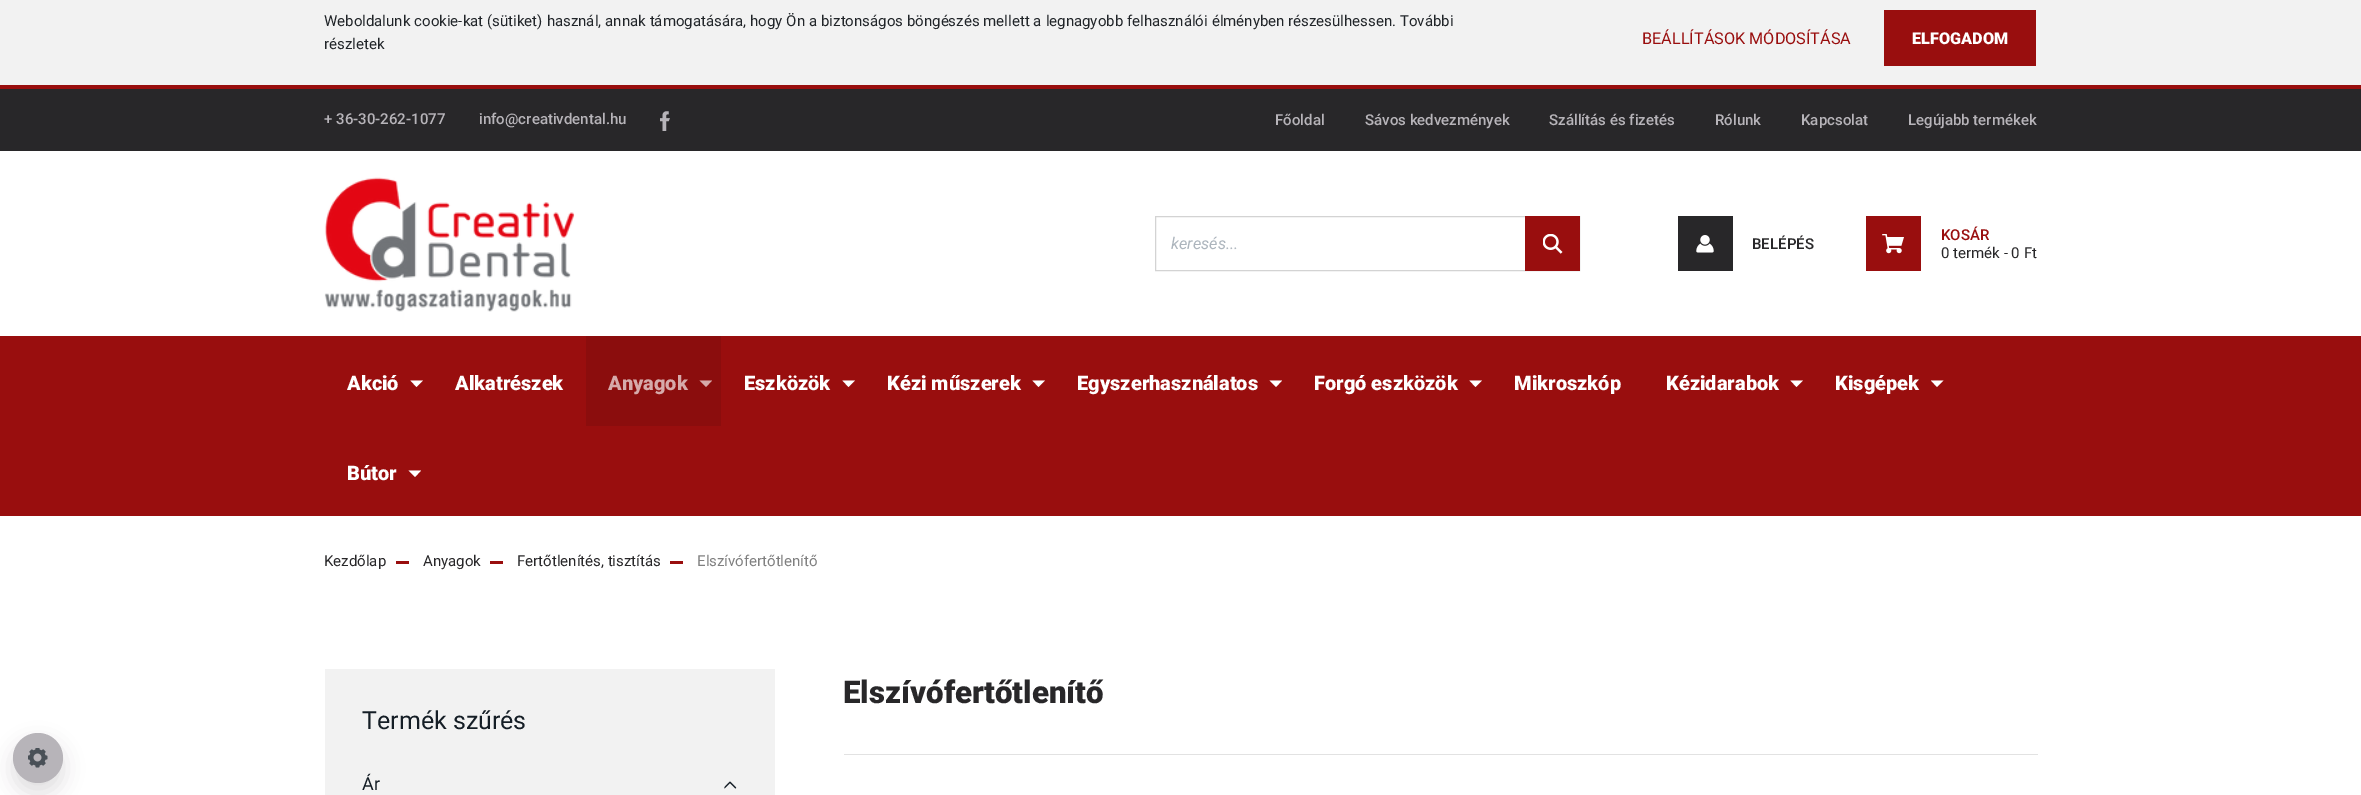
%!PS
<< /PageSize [2361 795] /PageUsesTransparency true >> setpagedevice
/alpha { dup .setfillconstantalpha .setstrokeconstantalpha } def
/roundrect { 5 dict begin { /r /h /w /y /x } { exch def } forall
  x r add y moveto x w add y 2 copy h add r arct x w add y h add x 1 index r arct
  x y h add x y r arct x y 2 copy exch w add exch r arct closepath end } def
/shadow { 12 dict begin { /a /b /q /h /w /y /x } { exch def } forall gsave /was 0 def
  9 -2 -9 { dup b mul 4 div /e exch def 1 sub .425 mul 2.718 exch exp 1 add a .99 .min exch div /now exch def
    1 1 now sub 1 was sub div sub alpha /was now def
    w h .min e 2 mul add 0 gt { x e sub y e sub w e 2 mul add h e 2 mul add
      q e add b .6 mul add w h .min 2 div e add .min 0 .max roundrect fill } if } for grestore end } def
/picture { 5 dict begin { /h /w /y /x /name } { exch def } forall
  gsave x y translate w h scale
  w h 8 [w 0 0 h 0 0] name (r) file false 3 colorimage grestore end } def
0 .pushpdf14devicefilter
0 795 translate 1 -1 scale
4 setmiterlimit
1 setgray
0 0 2361 795 rectfill
0.949 setgray
0 0 2361 85 rectfill
/Roboto-Regular [15 0 0 -15 0 0] selectfont
0.129 0.145 0.161 setrgbcolor
324 26 moveto 0.25 0 32 (Weboldalunk cookie-kat \(sütiket\) használ, annak támogatására, hogy Ön a biztonságos böngészés mellett a legnagyobb felhasználói élményben részesülhessen. További) widthshow
324 49 moveto (részletek) show
/Roboto-Regular [16.25 0 0 -16.25 0 0] selectfont
0.6 0.055 0.055 setrgbcolor
1642 44 moveto (BEÁLLÍTÁSOK MÓDOSÍTÁSA) show
1884 10 152 56 rectfill
/Roboto-Black [16.25 0 0 -16.25 0 0] selectfont
1 setgray
1912 44 moveto (ELFOGADOM) show
0.157 0.153 0.161 setrgbcolor
13 743 50 50 25 10 0.15 shadow
0.718 0.706 0.725 setrgbcolor
newpath 38 758 25 0 360 arc closepath fill
(img1.rgb) 28 748 20 20 picture
0.6 0.055 0.055 setrgbcolor
0 85 2361 4 rectfill
0.157 0.153 0.161 setrgbcolor
0 89 2361 62 rectfill
/Roboto-Medium [15 0 0 -15 0 0] selectfont
0.718 0.706 0.725 setrgbcolor
324 124 moveto (+ 36-30-262-1077) show
479 124 moveto (info@creativdental.hu) show
(img2.rgb) 660 111 10 20 picture
1275 125 moveto (Főoldal) show
1365 125 moveto (Sávos kedvezmények) show
1549 125 moveto (Szállítás és fizetés) show
1715 125 moveto (Rólunk) show
1801 125 moveto (Kapcsolat) show
1908 125 moveto (Legújabb termékek) show
(img3.rgb) 324 177 251 135 picture
0.827 setgray
1155.5 216.5 424 54 rectstroke
/Roboto-Italic [16.25 0 0 -16.25 0 0] selectfont
0.678 0.71 0.741 setrgbcolor
1171 249 moveto (keresés...) show
0.6 0.055 0.055 setrgbcolor
1525 216 55 55 rectfill
(img4.rgb) 1543 234 20 20 picture
0.157 0.153 0.161 setrgbcolor
1678 216 55 55 rectfill
(img5.rgb) 1696 235 18 18 picture
/Roboto-Medium [15 0 0 -15 0 0] selectfont
1752 249 moveto (BELÉPÉS) show
0.6 0.055 0.055 setrgbcolor
1866 216 55 55 rectfill
(img6.rgb) 1882 234 22 20 picture
1941 240 moveto (KOSÁR) show
/Roboto-Regular [15 0 0 -15 0 0] selectfont
0.157 0.153 0.161 setrgbcolor
1941 258 moveto (0 termék - 0 Ft) show
0.6 0.055 0.055 setrgbcolor
0 336 2361 180 rectfill
/Roboto-Black [20 0 0 -20 0 0] selectfont
1 setgray
347 390 moveto (Akció) show
newpath 410.5 380.5 moveto 423 380.5 lineto 416.5 387 lineto closepath fill
455 390 moveto (Alkatrészek) show
0.545 0.051 0.051 setrgbcolor
586 336 135 90 rectfill
0.839 0.667 0.667 setrgbcolor
608 390 moveto (Anyagok) show
newpath 699.5 380.5 moveto 712 380.5 lineto 706 387 lineto closepath fill
1 setgray
744 390 moveto (Eszközök) show
newpath 842.5 380.5 moveto 855 380.5 lineto 848.5 387 lineto closepath fill
887 390 moveto (Kézi műszerek) show
newpath 1032.5 380.5 moveto 1045 380.5 lineto 1038.5 387 lineto closepath fill
1077 390 moveto (Egyszerhasználatos) show
newpath 1269.5 380.5 moveto 1282 380.5 lineto 1276 387 lineto closepath fill
1314 390 moveto (Forgó eszközök) show
newpath 1469.5 380.5 moveto 1482 380.5 lineto 1475.5 387 lineto closepath fill
1514 390 moveto (Mikroszkóp) show
1666 390 moveto (Kézidarabok) show
newpath 1790.5 380.5 moveto 1803 380.5 lineto 1796.5 387 lineto closepath fill
1835 390 moveto (Kisgépek) show
newpath 1931 380.5 moveto 1943.5 380.5 lineto 1937 387 lineto closepath fill
347 480 moveto (Bútor) show
newpath 408.5 470.5 moveto 421 470.5 lineto 415 477 lineto closepath fill
/Roboto-Regular [15 0 0 -15 0 0] selectfont
0.157 0.153 0.161 setrgbcolor
324 566 moveto (Kezdőlap) show
0.6 0.055 0.055 setrgbcolor
396 561 13 3 rectfill
0.157 0.153 0.161 setrgbcolor
423 566 moveto (Anyagok) show
0.6 0.055 0.055 setrgbcolor
490 561 13 3 rectfill
0.157 0.153 0.161 setrgbcolor
517 566 moveto (Fertőtlenítés, tisztítás) show
0.6 0.055 0.055 setrgbcolor
670 561 13 3 rectfill
0.502 setgray
697 566 moveto (Elszívófertőtlenítő) show
/Roboto-Black [31.25 0 0 -31.25 0 0] selectfont
0.157 0.153 0.161 setrgbcolor
843 703 moveto (Elszívófertőtlenítő) show
0.886 setgray
844 754 1194 1 rectfill
0.949 setgray
325 669 450 126 rectfill
/Roboto-Regular [25 0 0 -25 0 0] selectfont
0.082 0.118 0.149 setrgbcolor
362 729 moveto (Termék szűrés) show
/Roboto-Regular [18 0 0 -18 0 0] selectfont
362 790 moveto (Ár) show
(img7.rgb) 724 781 13 8 picture
.poppdf14devicefilter showpage
